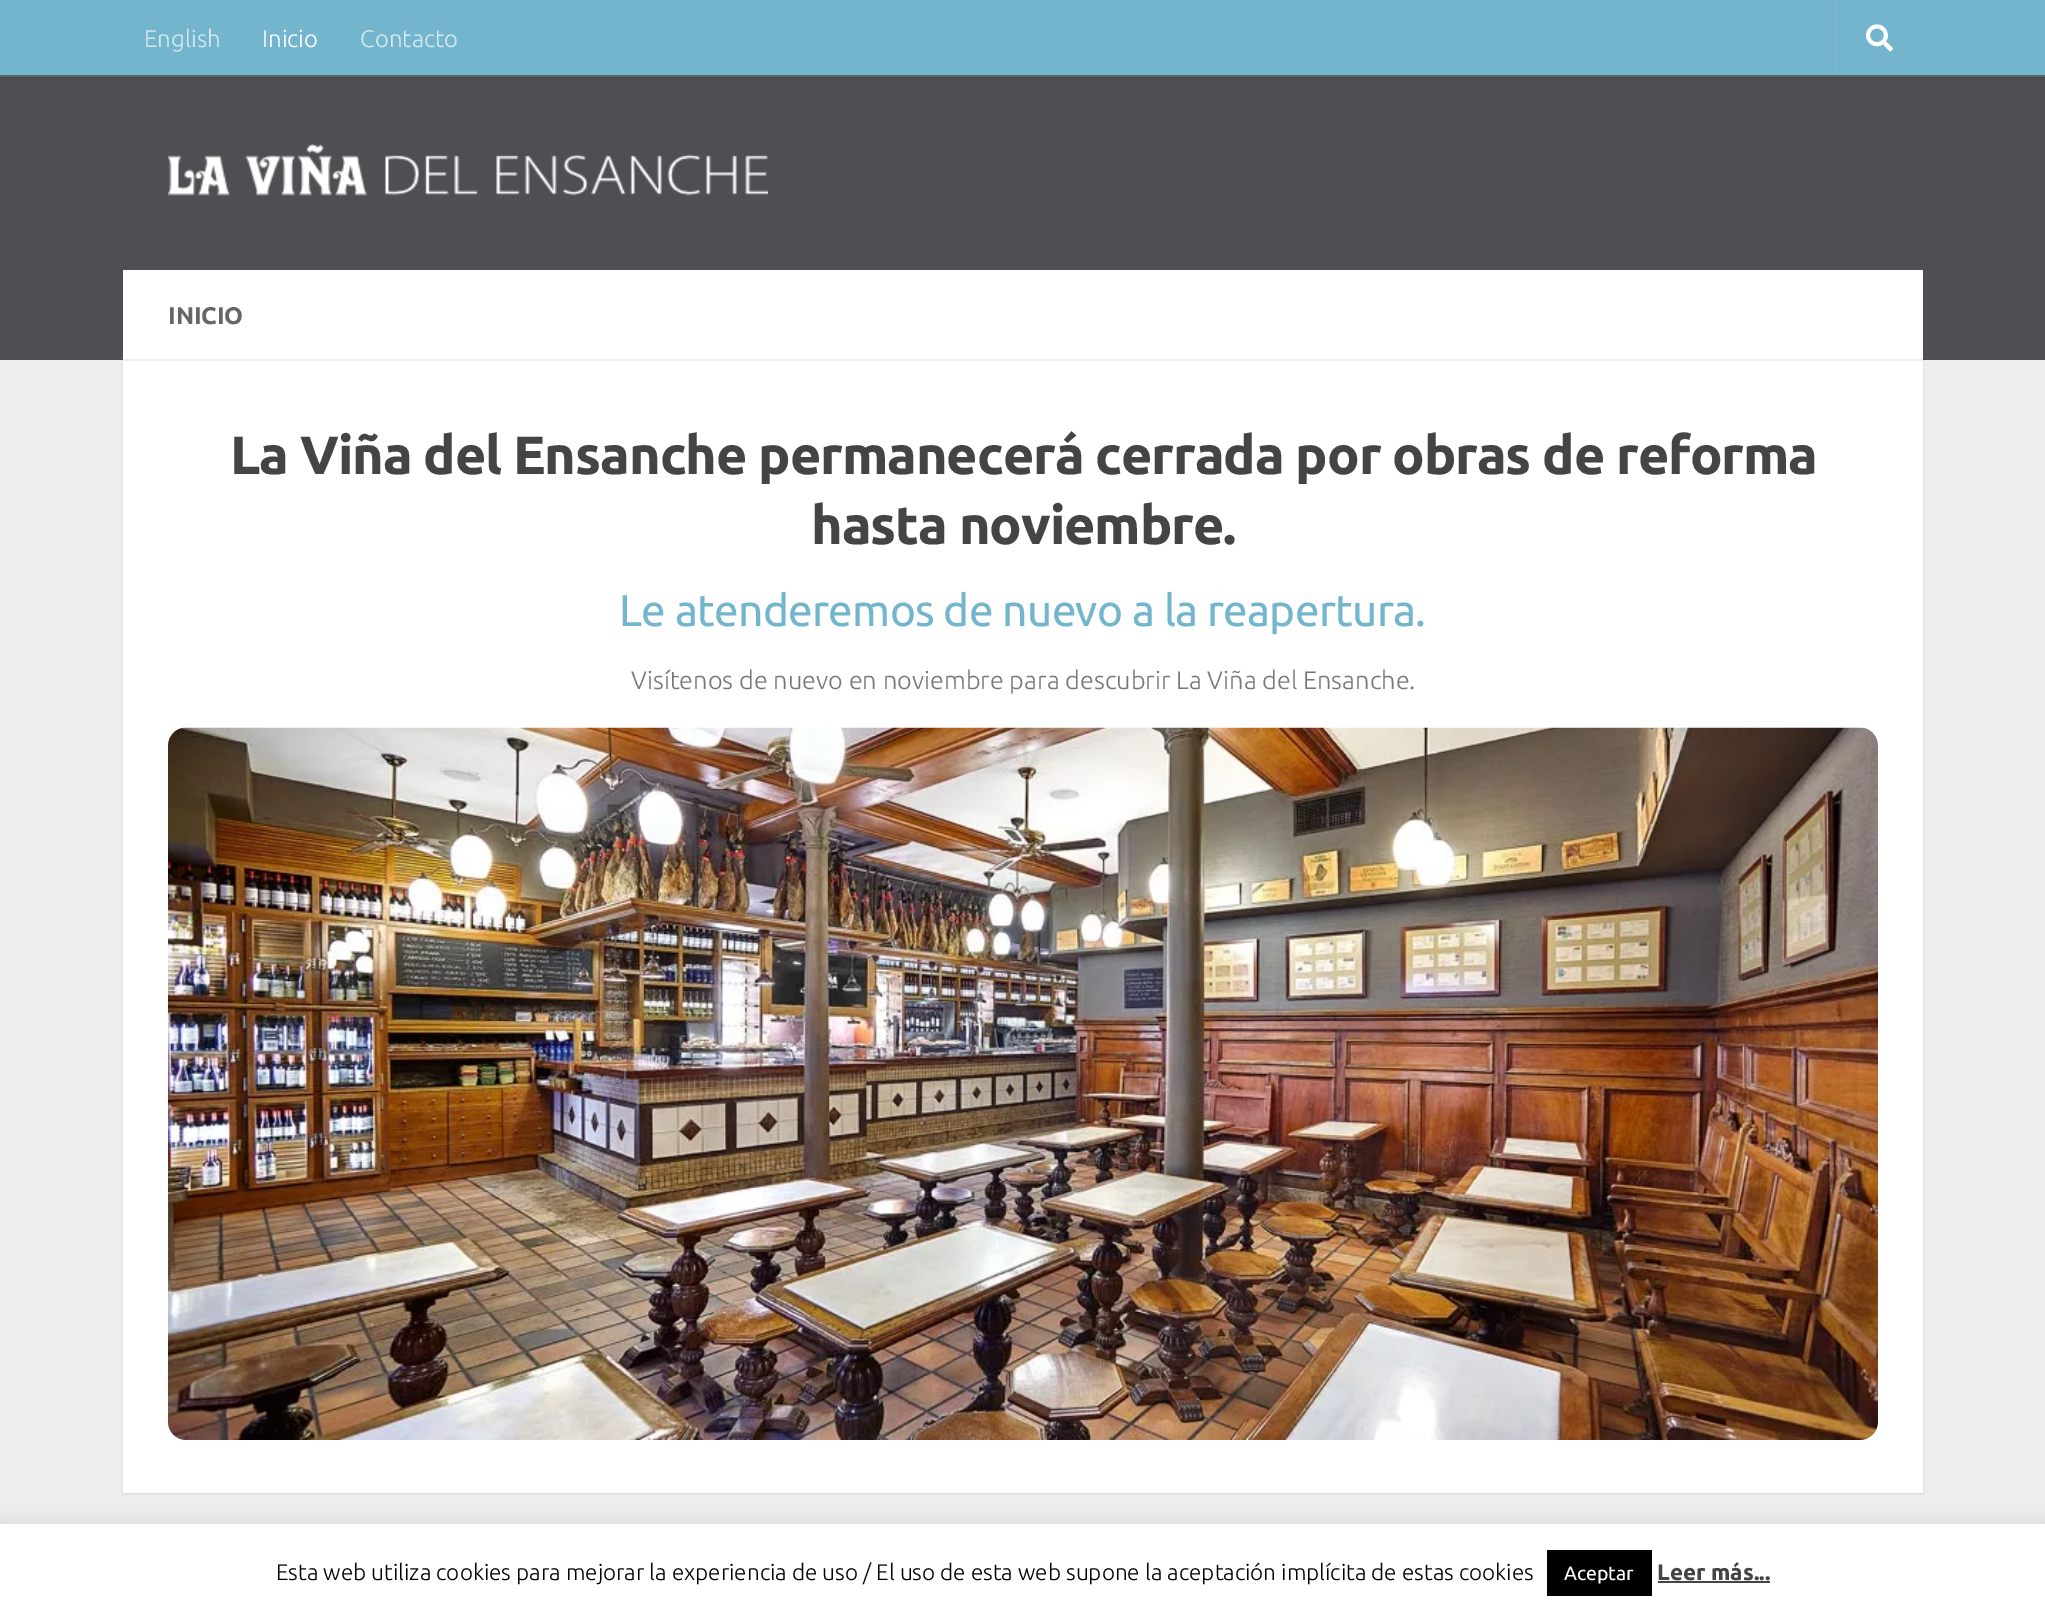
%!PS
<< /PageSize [2045 1613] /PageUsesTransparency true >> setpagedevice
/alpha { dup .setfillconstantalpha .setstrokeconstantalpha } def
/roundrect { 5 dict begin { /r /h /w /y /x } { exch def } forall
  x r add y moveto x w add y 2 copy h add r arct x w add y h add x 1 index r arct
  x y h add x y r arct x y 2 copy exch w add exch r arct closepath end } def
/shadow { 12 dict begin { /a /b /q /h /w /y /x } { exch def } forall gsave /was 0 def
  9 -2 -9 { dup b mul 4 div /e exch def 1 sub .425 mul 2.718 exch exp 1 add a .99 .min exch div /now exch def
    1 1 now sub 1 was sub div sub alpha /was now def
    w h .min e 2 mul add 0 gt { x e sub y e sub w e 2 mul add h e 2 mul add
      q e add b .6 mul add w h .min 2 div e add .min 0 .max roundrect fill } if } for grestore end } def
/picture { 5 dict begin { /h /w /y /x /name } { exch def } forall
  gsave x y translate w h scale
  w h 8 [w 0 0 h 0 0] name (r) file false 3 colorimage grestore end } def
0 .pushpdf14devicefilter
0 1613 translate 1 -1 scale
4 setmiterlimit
0.933 0.929 0.925 setrgbcolor
0 0 2045 1613 rectfill
0 setgray
123 272 1800 1222 0 1 0.1 shadow
0.302 0.31 0.325 setrgbcolor
0 77 2045 283 rectfill
0.408 0.412 0.427 setrgbcolor
0 75 2045 2 rectfill
0 setgray
0 0 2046 75 0 4 0.2 shadow
0.447 0.71 0.8 setrgbcolor
0 0 2045 75 rectfill
/Ubuntu-Light [24 0 0 -24 0 0] selectfont
0.835 0.914 0.941 setrgbcolor
144 47 moveto (English) show
1 setgray
262 47 moveto (Inicio) show
0.835 0.914 0.941 setrgbcolor
360 47 moveto (Contacto) show
0.502 0.737 0.82 setrgbcolor
1835 0 1 75 rectfill
(img1.rgb) 1866 24 27 28 picture
(img2.rgb) 168 143 600 53 picture
1 setgray
123 270 1800 1223 rectfill
0.933 setgray
123 359 1800 2 rectfill
/Ubuntu-Bold [24 0 0 -24 0 0] selectfont
0.4 setgray
168 324 moveto (INICIO) show
/Ubuntu-Bold [53.8 0 0 -53.8 0 0] selectfont
0.267 setgray
230 474 moveto -1.05 0 (La Viña del Ensanche permanecerá cerrada por obras de reforma) ashow
811 544 moveto -1.05 0 (hasta noviembre.) ashow
/Ubuntu-Regular [44.25 0 0 -44.25 0 0] selectfont
0.447 0.71 0.8 setrgbcolor
619 626 moveto -0.75 0 (Le atenderemos de nuevo a la reapertura.) ashow
/Ubuntu-Light [25.3 0 0 -25.3 0 0] selectfont
0.467 setgray
631 689 moveto (Visítenos de nuevo en noviembre para descubrir La Viña del Ensanche.) show
(img3.rgb) 168 727 1710 713 picture
0.675 0.671 0.671 setrgbcolor
0 1523 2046 90 0 7.5 0.3 shadow
1 setgray
0 1524 2045 89 rectfill
/Ubuntu-Light [22.5 0 0 -22.5 0 0] selectfont
0 setgray
276 1580 moveto (Esta web utiliza cookies para mejorar la experiencia de uso / El uso de esta web supone la aceptación implícita de estas cookies) show
1547 1550 105 46 rectfill
/Ubuntu-Regular [19.5 0 0 -19.5 0 0] selectfont
1 setgray
1564 1580 moveto (Aceptar) show
/Ubuntu-Bold [22.5 0 0 -22.5 0 0] selectfont
0.267 setgray
1657 1580 moveto (Leer más...) show
1658 1581 112 2 rectfill
.poppdf14devicefilter showpage
